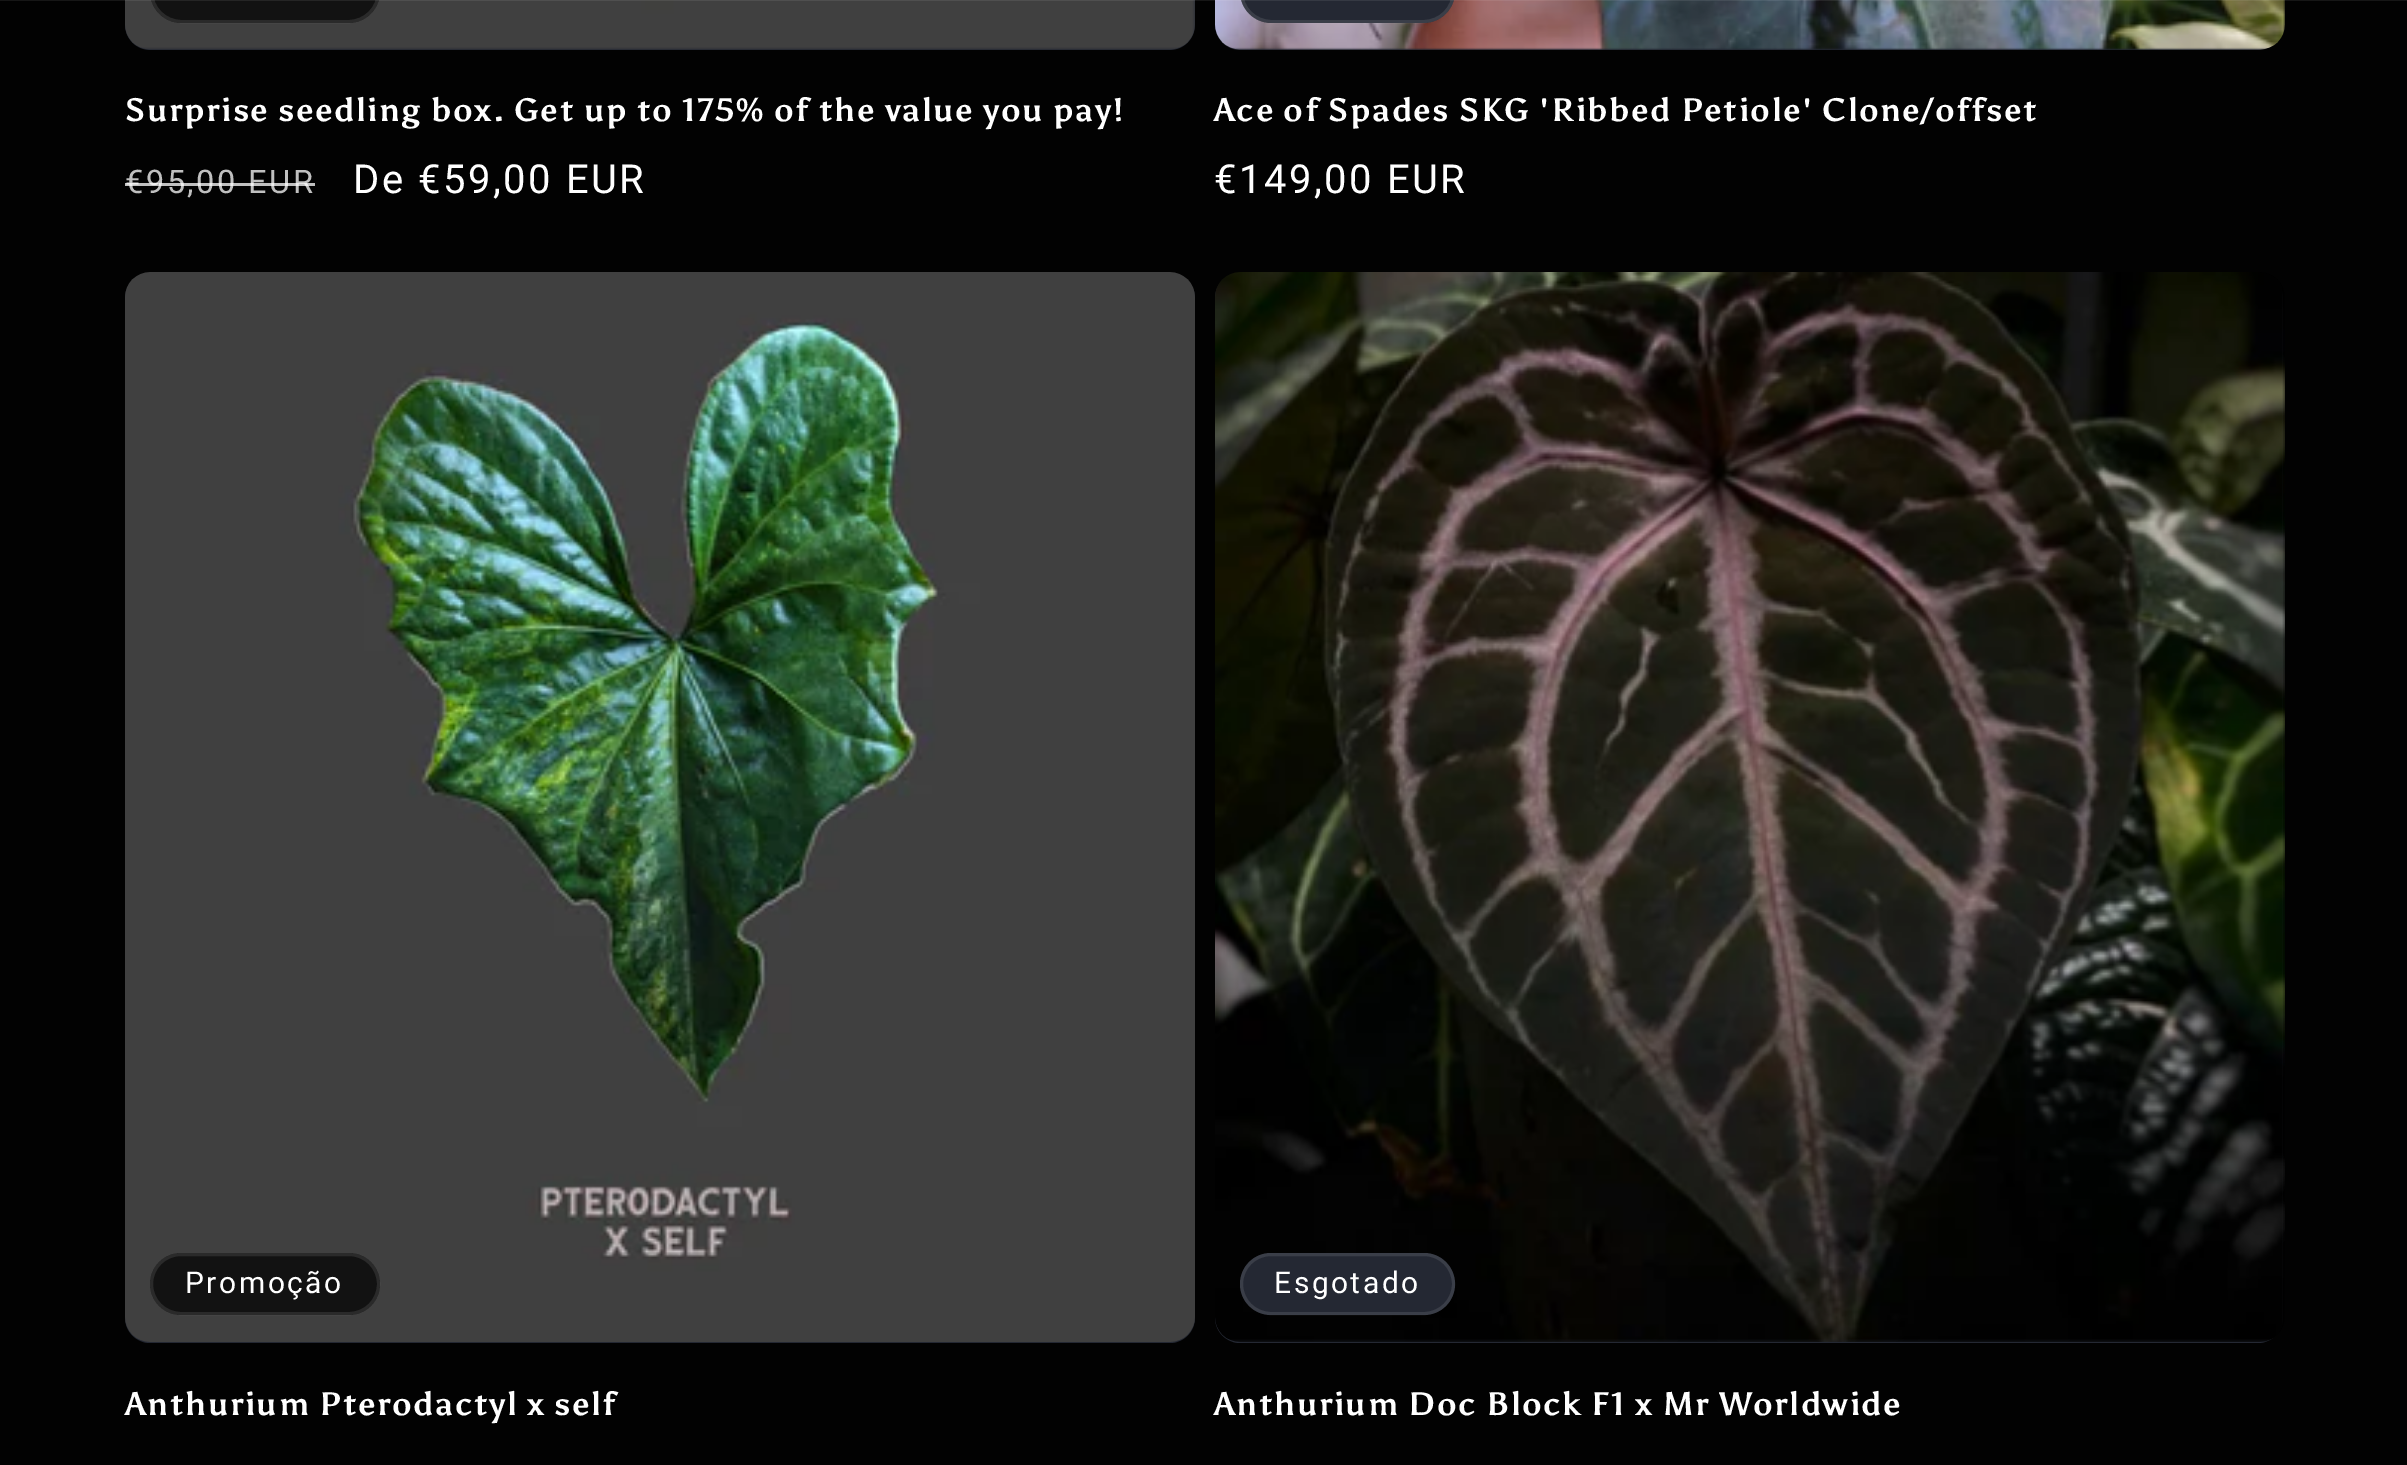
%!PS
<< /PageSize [2407 1465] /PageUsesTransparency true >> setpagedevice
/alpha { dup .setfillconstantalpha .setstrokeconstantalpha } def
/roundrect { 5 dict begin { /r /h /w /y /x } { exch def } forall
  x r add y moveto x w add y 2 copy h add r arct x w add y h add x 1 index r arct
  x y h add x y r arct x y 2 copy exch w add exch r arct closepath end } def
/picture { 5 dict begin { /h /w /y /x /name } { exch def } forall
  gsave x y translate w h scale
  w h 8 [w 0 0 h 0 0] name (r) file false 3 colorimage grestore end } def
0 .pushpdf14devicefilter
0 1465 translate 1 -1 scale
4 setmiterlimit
0.008 setgray
0 0 2407 1465 rectfill
0.141 0.157 0.2 setrgbcolor
125 -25 1070 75 25 roundrect fill
(img1.rgb) 125 0 1070 50 picture
0.071 setgray
150 -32 230 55 31.5 roundrect fill
0.1 alpha
1 setgray
3 setlinewidth
151.5 -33.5 227 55 30 roundrect stroke
1 alpha
0.141 0.157 0.2 setrgbcolor
1215 -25 1068 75 25 roundrect fill
(img2.rgb) 1215 0 1070 50 picture
1240 -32 215 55 31.5 roundrect fill
0.1 alpha
1 setgray
1241.5 -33.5 212 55 30 roundrect stroke
0.08 alpha
0 0 2407 1 rectfill
/Asul-Bold [32.5 0 0 -32.5 0 0] selectfont
1 alpha
125 121 moveto 1.5 0 (Surprise seedling box. Get up to 175% of the value you pay!) ashow
/Roboto-Regular [32.5 0 0 -32.5 0 0] selectfont
0.753 setgray
125 193 moveto 2.5 0 (€95,00 EUR) ashow
0.75 alpha
1 setgray
125 183 190 3 rectfill
/Roboto-Regular [40 0 0 -40 0 0] selectfont
1 alpha
353 193 moveto 2.5 0 (De €59,00 EUR) ashow
/Asul-Bold [32.5 0 0 -32.5 0 0] selectfont
1214 121 moveto 1.5 0 (Ace of Spades SKG 'Ribbed Petiole' Clone/offset) ashow
/Roboto-Regular [40 0 0 -40 0 0] selectfont
1214 193 moveto 2.5 0 (€149,00 EUR) ashow
0.141 0.157 0.2 setrgbcolor
125 273 1070 1070 25 roundrect fill
(img3.rgb) 125 272 1070 1070 picture
0.071 setgray
150 1253 230 62 31 roundrect fill
0.1 alpha
1 setgray
151.5 1254.5 227 59 29.5 roundrect stroke
/Roboto-Regular [30 0 0 -30 0 0] selectfont
1 alpha
185 1293 moveto 2.5 0 (Promoção) ashow
/Asul-Bold [32.5 0 0 -32.5 0 0] selectfont
125 1415 moveto 1.5 0 (Anthurium Pterodactyl x self) ashow
0.141 0.157 0.2 setrgbcolor
1215 273 1068 1070 25 roundrect fill
(img4.rgb) 1215 272 1070 1070 picture
1240 1253 215 62 31 roundrect fill
0.1 alpha
1 setgray
1241.5 1254.5 212 59 29.5 roundrect stroke
/Roboto-Regular [30 0 0 -30 0 0] selectfont
1 alpha
1274 1293 moveto 2.5 0 (Esgotado) ashow
/Asul-Bold [32.5 0 0 -32.5 0 0] selectfont
1214 1415 moveto 1.5 0 (Anthurium Doc Block F1 x Mr Worldwide) ashow
.poppdf14devicefilter showpage
